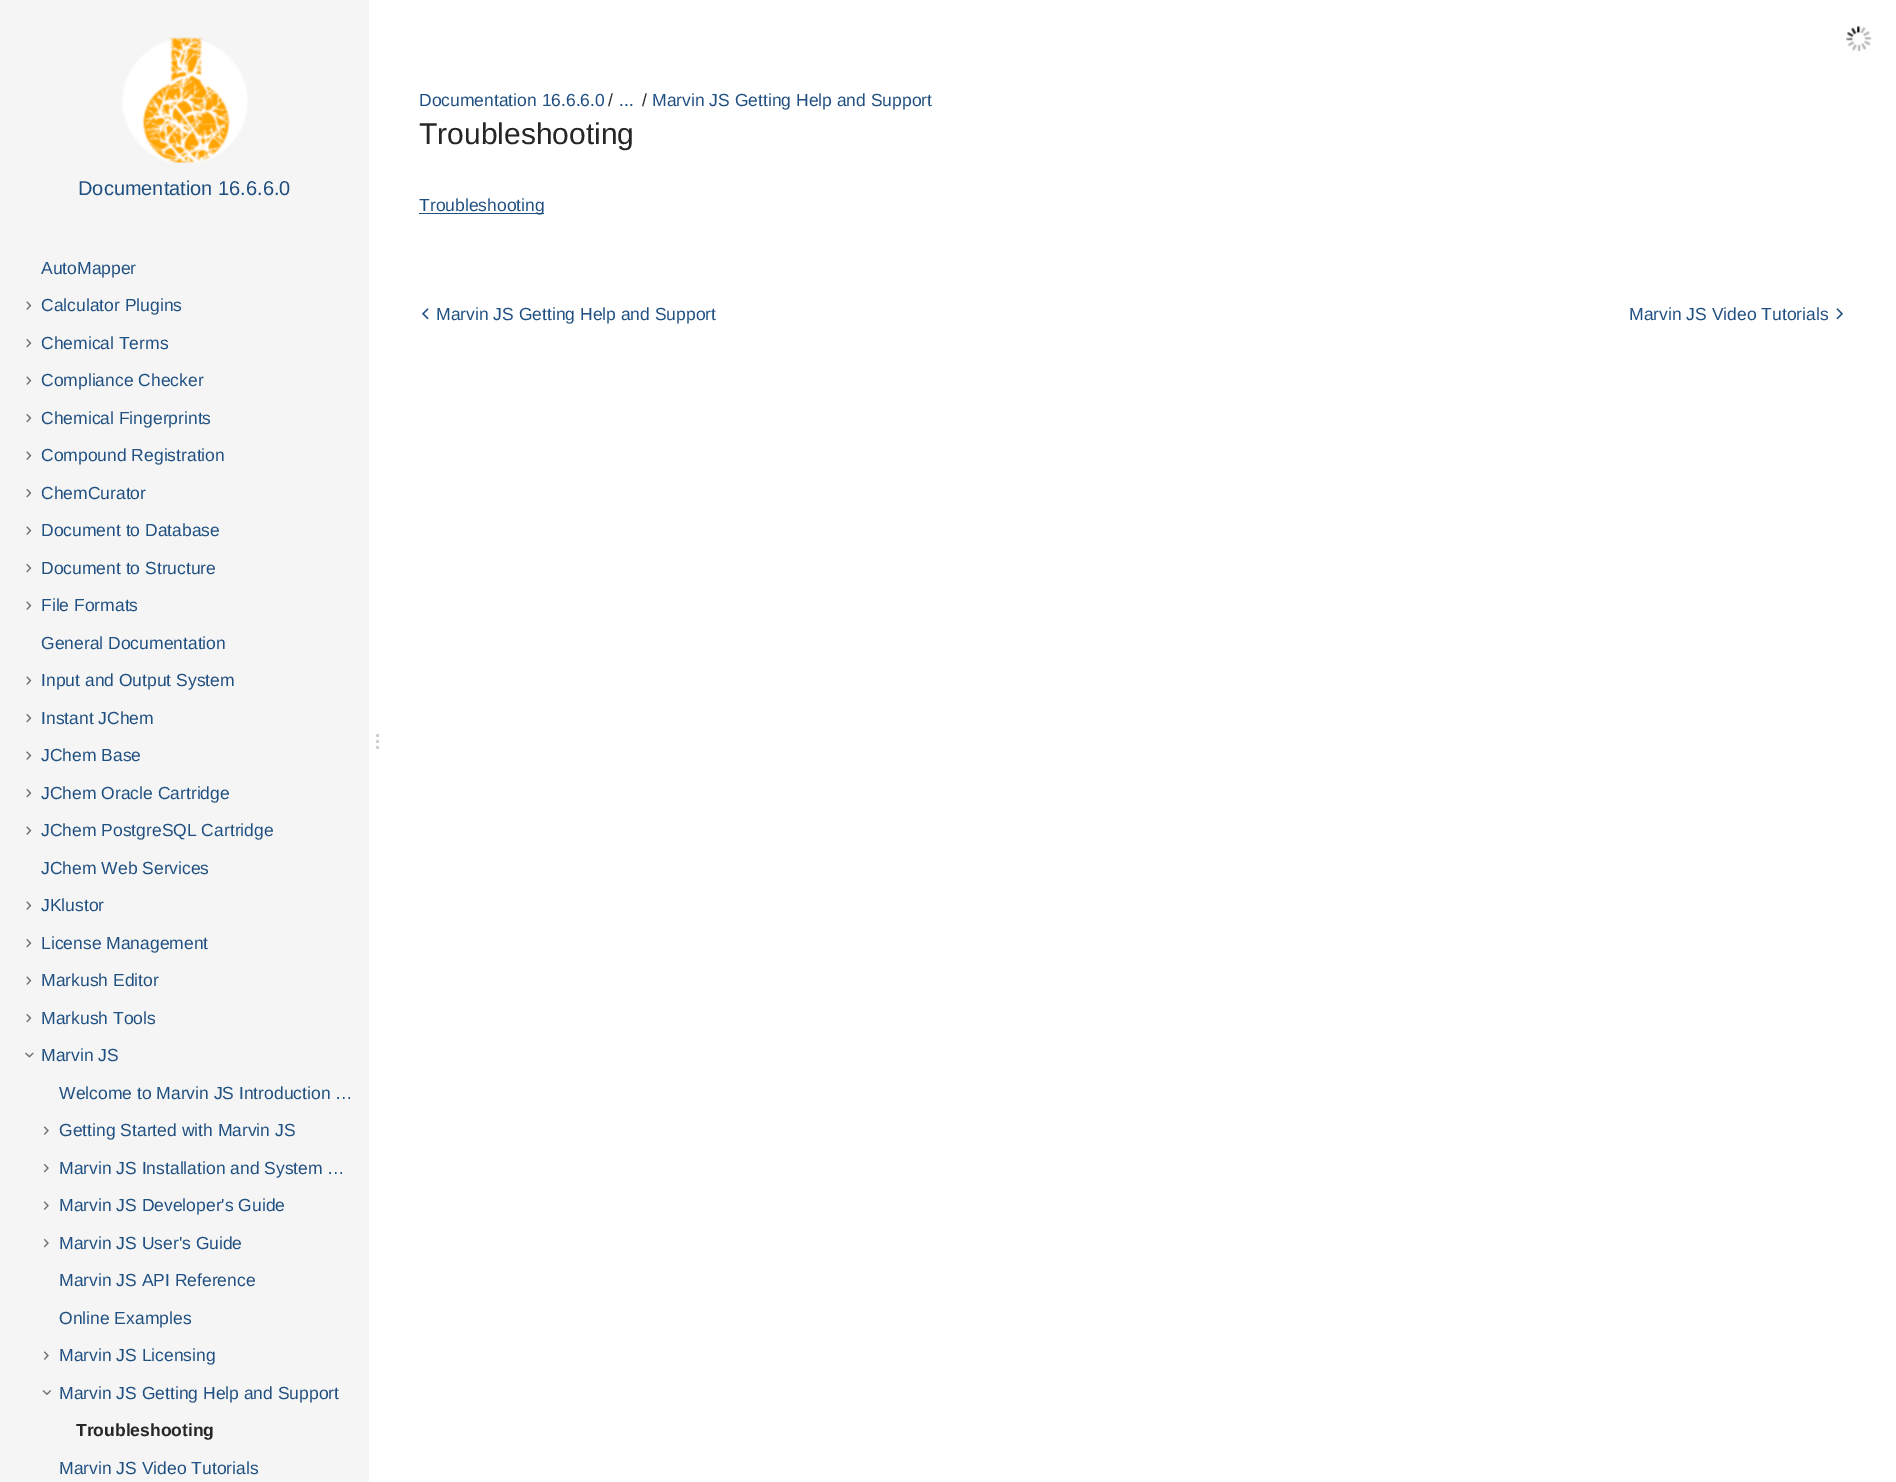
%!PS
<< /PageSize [1896 1482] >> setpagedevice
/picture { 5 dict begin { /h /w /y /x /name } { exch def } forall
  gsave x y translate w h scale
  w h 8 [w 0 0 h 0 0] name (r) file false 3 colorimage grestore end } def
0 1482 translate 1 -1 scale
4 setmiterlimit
1 setgray
0 0 1896 1482 rectfill
(img1.rgb) 1846 26 26 26 picture
0.961 setgray
0 0 369 1482 rectfill
(img2.rgb) 122 37 126 126 picture
/LiberationSans-Regular [20 0 0 -20 0 0] selectfont
0.125 0.314 0.506 setrgbcolor
78 195 moveto (Documentation 16.6.6.0) show
/LiberationSans-Regular [17.5 0 0 -17.5 0 0] selectfont
41 274 moveto (AutoMapper) show
(img3.rgb) 26 301 6 9 picture
41 311 moveto (Calculator Plugins) show
(img4.rgb) 26 338 6 10 picture
41 349 moveto (Chemical Terms) show
(img3.rgb) 26 376 6 9 picture
41 386 moveto (Compliance Checker) show
(img4.rgb) 26 413 6 10 picture
41 424 moveto (Chemical Fingerprints) show
(img3.rgb) 26 451 6 9 picture
41 461 moveto (Compound Registration) show
(img4.rgb) 26 488 6 10 picture
41 499 moveto (ChemCurator) show
(img3.rgb) 26 526 6 9 picture
41 536 moveto (Document to Database) show
(img4.rgb) 26 563 6 10 picture
41 574 moveto (Document to Structure) show
(img3.rgb) 26 601 6 9 picture
41 611 moveto (File Formats) show
41 649 moveto (General Documentation) show
(img3.rgb) 26 676 6 9 picture
41 686 moveto (Input and Output System) show
(img4.rgb) 26 713 6 10 picture
41 724 moveto (Instant JChem) show
(img3.rgb) 26 751 6 9 picture
41 761 moveto (JChem Base) show
(img4.rgb) 26 788 6 10 picture
41 799 moveto (JChem Oracle Cartridge) show
(img3.rgb) 26 826 6 9 picture
41 836 moveto (JChem PostgreSQL Cartridge) show
41 874 moveto (JChem Web Services) show
(img3.rgb) 26 901 6 9 picture
41 911 moveto (JKlustor) show
(img4.rgb) 26 938 6 10 picture
41 949 moveto (License Management) show
(img3.rgb) 26 976 6 9 picture
41 986 moveto (Markush Editor) show
(img4.rgb) 26 1013 6 10 picture
41 1024 moveto (Markush Tools) show
(img5.rgb) 25 1052 9 6 picture
41 1061 moveto (Marvin JS) show
59 1099 moveto (Welcome to Marvin JS Introduction …) show
(img6.rgb) 43 1126 6 9 picture
59 1136 moveto (Getting Started with Marvin JS) show
(img7.rgb) 43 1163 6 10 picture
59 1174 moveto (Marvin JS Installation and System …) show
(img6.rgb) 43 1201 6 9 picture
59 1211 moveto (Marvin JS Developer's Guide) show
(img7.rgb) 43 1238 6 10 picture
59 1249 moveto (Marvin JS User's Guide) show
59 1286 moveto (Marvin JS API Reference) show
59 1324 moveto (Online Examples) show
(img6.rgb) 43 1351 6 9 picture
59 1361 moveto (Marvin JS Licensing) show
(img8.rgb) 42 1390 10 5 picture
59 1399 moveto (Marvin JS Getting Help and Support) show
/LiberationSans-Bold [17.5 0 0 -17.5 0 0] selectfont
0.149 setgray
76 1436 moveto (Troubleshooting) show
/LiberationSans-Regular [17.5 0 0 -17.5 0 0] selectfont
0.125 0.314 0.506 setrgbcolor
59 1474 moveto (Marvin JS Video Tutorials) show
419 106 moveto (Documentation 16.6.6.0) show
0.149 setgray
608 106 moveto (/) show
0.125 0.314 0.506 setrgbcolor
619 106 moveto (...) show
0.149 setgray
642 106 moveto (/) show
0.125 0.314 0.506 setrgbcolor
652 106 moveto (Marvin JS Getting Help and Support) show
/LiberationSans-Regular [30 0 0 -30 0 0] selectfont
0.149 setgray
419 144 moveto (Troubleshooting) show
0.125 0.314 0.506 setrgbcolor
419 213 125 1 rectfill
/LiberationSans-Regular [17.5 0 0 -17.5 0 0] selectfont
419 211 moveto (Troubleshooting) show
(img9.rgb) 422 308 7 12 picture
436 320 moveto (Marvin JS Getting Help and Support) show
1629 320 moveto (Marvin JS Video Tutorials) show
(img10.rgb) 1836 308 7 12 picture
0.8 setgray
newpath 377.5 735.5 1.5 0 360 arc closepath fill
newpath 377.5 741.5 1.5 0 360 arc closepath fill
newpath 377.5 747.5 1.5 0 360 arc closepath fill
showpage
